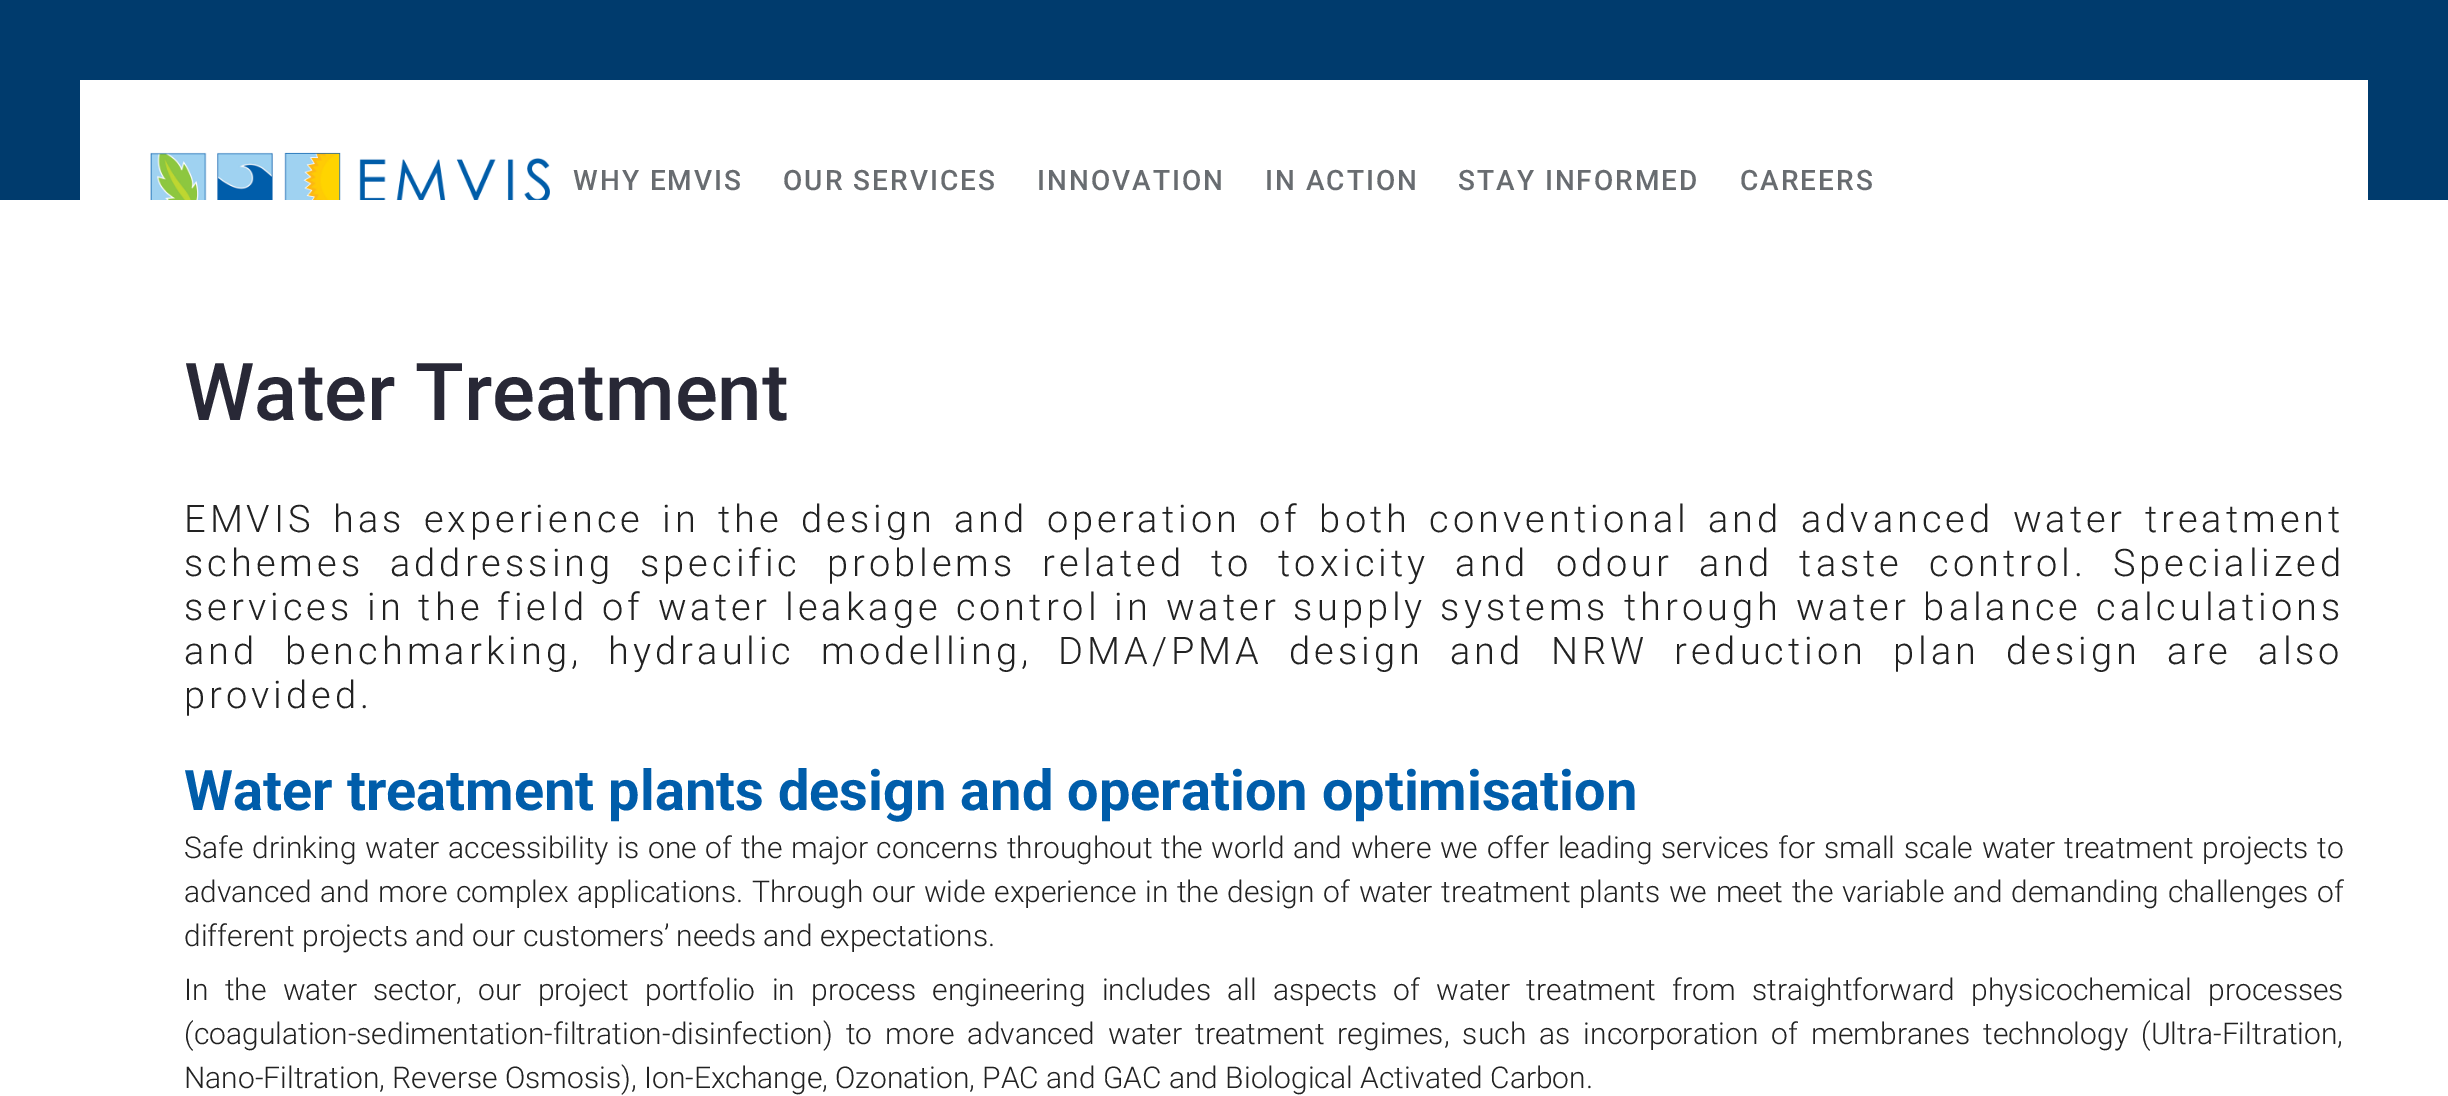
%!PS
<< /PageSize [2448 1096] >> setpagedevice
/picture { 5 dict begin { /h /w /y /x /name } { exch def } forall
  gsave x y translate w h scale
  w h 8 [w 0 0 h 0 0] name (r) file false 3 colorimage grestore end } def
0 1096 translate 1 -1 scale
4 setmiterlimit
0 0.231 0.427 setrgbcolor
0 0 2448 1096 rectfill
1 setgray
80 80 2288 120 rectfill
(img1.rgb) 150 152 400 48 picture
/Roboto-Medium [28 0 0 -28 0 0] selectfont
0.408 0.424 0.439 setrgbcolor
573 190 moveto 2 0 (WHY EMVIS) ashow
783 190 moveto 2 0 (OUR SERVICES) ashow
1037 190 moveto 2 0 (INNOVATION) ashow
1265 190 moveto 2 0 (IN ACTION) ashow
1458 190 moveto 2 0 (STAY INFORMED) ashow
1740 190 moveto 2 0 (CAREERS) ashow
1 setgray
0 200 2448 896 rectfill
/Roboto-Medium [80 0 0 -80 0 0] selectfont
0.157 0.157 0.212 setrgbcolor
184 420 moveto (Water Treatment) show
/Roboto-Light [38 0 0 -38 0 0] selectfont
0.133 setgray
184 532 moveto 5.1 0 32 4 0 (EMVIS has experience in the design and operation of both conventional and advanced water treatment) awidthshow
184 576 moveto 12.75 0 32 4 0 (schemes addressing specific problems related to toxicity and odour and taste control. Specialized) awidthshow
184 620 moveto 0.75 0 32 4 0 (services in the field of water leakage control in water supply systems through water balance calculations) awidthshow
184 664 moveto 13 0 32 4 0 (and benchmarking, hydraulic modelling, DMA/PMA design and NRW reduction plan design are also) awidthshow
184 708 moveto 4 0 (provided.) ashow
/Roboto-Bold [56 0 0 -56 0 0] selectfont
0 0.365 0.667 setrgbcolor
184 810 moveto (Water treatment plants design and operation optimisation) show
/Roboto-Light [30 0 0 -30 0 0] selectfont
0.133 setgray
184 858 moveto 1.4 0 32 (Safe drinking water accessibility is one of the major concerns throughout the world and where we offer leading services for small scale water treatment projects to) widthshow
184 902 moveto 1.4 0 32 (advanced and more complex applications. Through our wide experience in the design of water treatment plants we meet the variable and demanding challenges of) widthshow
184 946 moveto (different projects and our customers’ needs and expectations.) show
184 1000 moveto 9 0 32 (In the water sector, our project portfolio in process engineering includes all aspects of water treatment from straightforward physicochemical processes) widthshow
184 1044 moveto 5.75 0 32 (\(coagulation-sedimentation-filtration-disinfection\) to more advanced water treatment regimes, such as incorporation of membranes technology \(Ultra-Filtration,) widthshow
184 1088 moveto (Nano-Filtration, Reverse Osmosis\), Ion-Exchange, Ozonation, PAC and GAC and Biological Activated Carbon.) show
showpage
